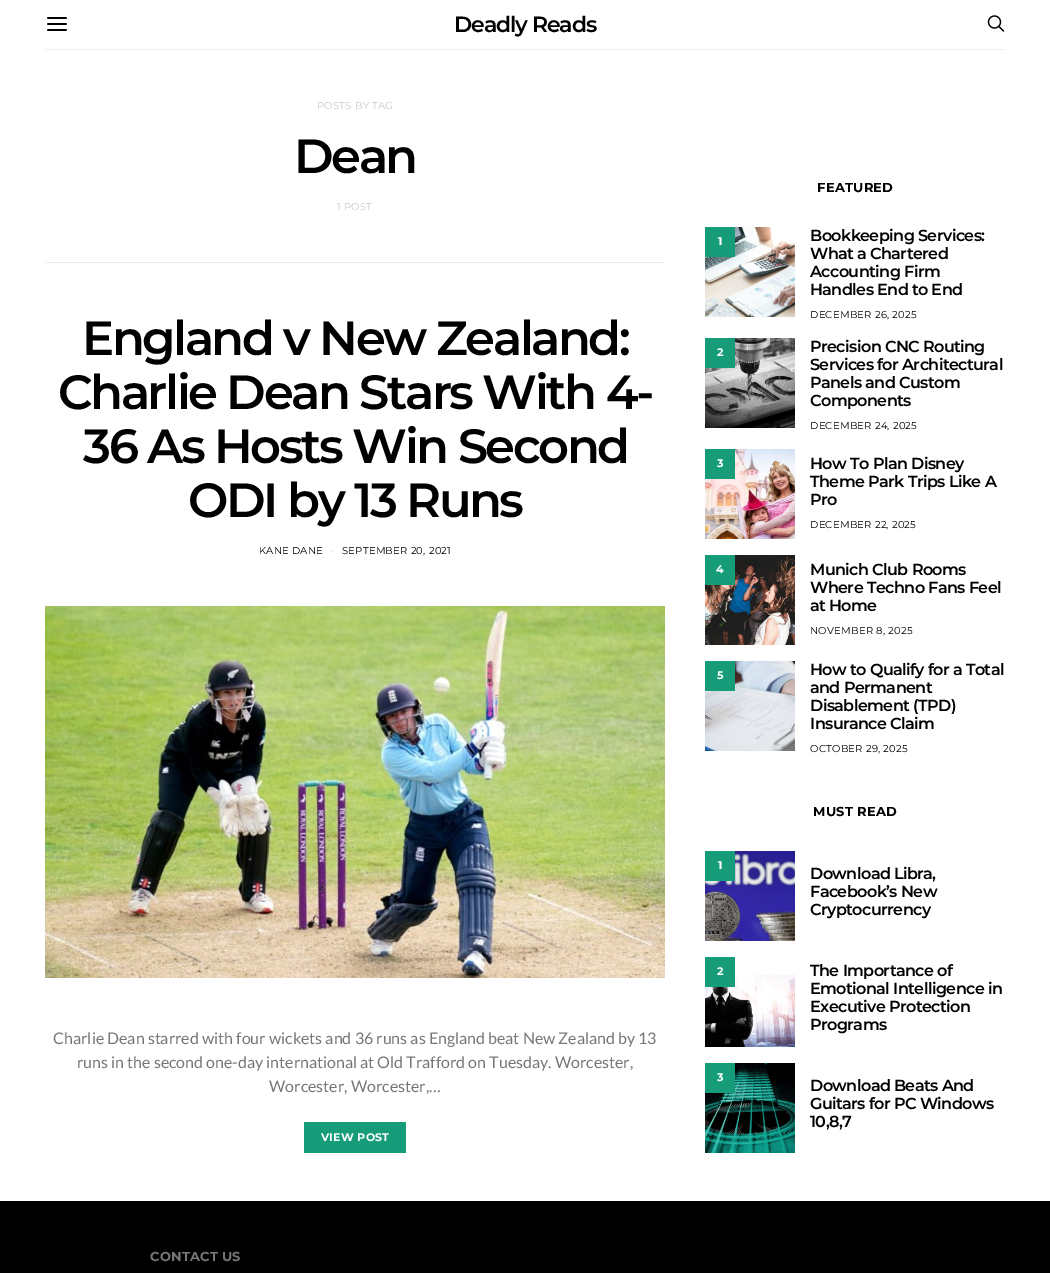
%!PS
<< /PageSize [1050 1273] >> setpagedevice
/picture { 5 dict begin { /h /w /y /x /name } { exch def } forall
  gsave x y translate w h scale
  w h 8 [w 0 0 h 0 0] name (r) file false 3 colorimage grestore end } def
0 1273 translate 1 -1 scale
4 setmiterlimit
1 setgray
0 0 1050 1273 rectfill
0.933 setgray
45 49 960 1 rectfill
(img1.rgb) 47 17 20 14 picture
/Montserrat-SemiBold [22 0 0 -22 0 0] selectfont
0 setgray
454 32 moveto -1.1 0 (Deadly Reads) ashow
(img2.rgb) 987 15 18 17 picture
/Montserrat-Regular [10 0 0 -10 0 0] selectfont
0.788 setgray
317 109 moveto 0.25 0 (POSTS BY TAG) ashow
/Montserrat-SemiBold [48 0 0 -48 0 0] selectfont
0 setgray
294 173 moveto -2.4 0 (Dean) ashow
/Montserrat-Regular [10 0 0 -10 0 0] selectfont
0.788 setgray
337 210 moveto 0.25 0 (1 POST) ashow
0.914 0.925 0.937 setrgbcolor
45 262 620 1 rectfill
/Montserrat-SemiBold [48 0 0 -48 0 0] selectfont
0 setgray
82 355 moveto -2.4 0 (England v New Zealand:) ashow
58 409 moveto -2.4 0 (Charlie Dean Stars With 4-) ashow
83 463 moveto -2.4 0 (36 As Hosts Win Second) ashow
188 517 moveto -2.4 0 (ODI by 13 Runs) ashow
/Montserrat-Regular [10 0 0 -10 0 0] selectfont
259 554 moveto 0.25 0 (KANE DANE) ashow
0.788 setgray
331 554 moveto 0.25 0 (·) ashow
0 setgray
342 554 moveto 0.25 0 (SEPTEMBER 20, 2021) ashow
(img3.rgb) 45 606 620 372 picture
/Lato-Regular [16 0 0 -16 0 0] selectfont
0.467 setgray
53 1044 moveto (Charlie Dean starred with four wickets and 36 runs as England beat New Zealand by 13) show
77 1068 moveto (runs in the second one-day international at Old Trafford on Tuesday. Worcester,) show
269 1092 moveto (Worcester, Worcester,…) show
0.086 0.612 0.471 setrgbcolor
304 1122 102 31 rectfill
/Montserrat-Bold [11 0 0 -11 0 0] selectfont
1 setgray
321 1141 moveto 0.25 0 (VIEW POST) ashow
/Montserrat-Bold [13 0 0 -13 0 0] selectfont
0 setgray
817 192 moveto 0.25 0 (FEATURED) ashow
(img4.rgb) 705 227 90 90 picture
0.086 0.612 0.471 setrgbcolor
705 227 30 30 rectfill
/Montserrat-Bold [11 0 0 -11 0 0] selectfont
1 setgray
718 245 moveto 0.25 0 (1) ashow
/Montserrat-SemiBold [16 0 0 -16 0 0] selectfont
0 setgray
810 241 moveto -0.6 0 (Bookkeeping Services:) ashow
810 259 moveto -0.6 0 (What a Chartered) ashow
810 277 moveto -0.6 0 (Accounting Firm) ashow
810 295 moveto -0.6 0 (Handles End to End) ashow
/Montserrat-Regular [10 0 0 -10 0 0] selectfont
810 318 moveto 0.25 0 (DECEMBER 26, 2025) ashow
(img5.rgb) 705 338 90 90 picture
0.086 0.612 0.471 setrgbcolor
705 338 30 30 rectfill
/Montserrat-Bold [11 0 0 -11 0 0] selectfont
1 setgray
717 356 moveto 0.25 0 (2) ashow
/Montserrat-SemiBold [16 0 0 -16 0 0] selectfont
0 setgray
810 352 moveto -0.6 0 (Precision CNC Routing) ashow
810 370 moveto -0.6 0 (Services for Architectural) ashow
810 388 moveto -0.6 0 (Panels and Custom) ashow
810 406 moveto -0.6 0 (Components) ashow
/Montserrat-Regular [10 0 0 -10 0 0] selectfont
810 429 moveto 0.25 0 (DECEMBER 24, 2025) ashow
(img6.rgb) 705 449 90 90 picture
0.086 0.612 0.471 setrgbcolor
705 449 30 30 rectfill
/Montserrat-Bold [11 0 0 -11 0 0] selectfont
1 setgray
717 467 moveto 0.25 0 (3) ashow
/Montserrat-SemiBold [16 0 0 -16 0 0] selectfont
0 setgray
810 469 moveto -0.6 0 (How To Plan Disney) ashow
810 487 moveto -0.6 0 (Theme Park Trips Like A) ashow
810 505 moveto -0.6 0 (Pro) ashow
/Montserrat-Regular [10 0 0 -10 0 0] selectfont
810 528 moveto 0.25 0 (DECEMBER 22, 2025) ashow
(img7.rgb) 705 555 90 90 picture
0.086 0.612 0.471 setrgbcolor
705 555 30 30 rectfill
/Montserrat-Bold [11 0 0 -11 0 0] selectfont
1 setgray
716 573 moveto 0.25 0 (4) ashow
/Montserrat-SemiBold [16 0 0 -16 0 0] selectfont
0 setgray
810 575 moveto -0.6 0 (Munich Club Rooms) ashow
810 593 moveto -0.6 0 (Where Techno Fans Feel) ashow
810 611 moveto -0.6 0 (at Home) ashow
/Montserrat-Regular [10 0 0 -10 0 0] selectfont
810 634 moveto 0.25 0 (NOVEMBER 8, 2025) ashow
(img8.rgb) 705 661 90 90 picture
0.086 0.612 0.471 setrgbcolor
705 661 30 30 rectfill
/Montserrat-Bold [11 0 0 -11 0 0] selectfont
1 setgray
717 679 moveto 0.25 0 (5) ashow
/Montserrat-SemiBold [16 0 0 -16 0 0] selectfont
0 setgray
810 675 moveto -0.6 0 (How to Qualify for a Total) ashow
810 693 moveto -0.6 0 (and Permanent) ashow
810 711 moveto -0.6 0 (Disablement \(TPD\)) ashow
810 729 moveto -0.6 0 (Insurance Claim) ashow
/Montserrat-Regular [10 0 0 -10 0 0] selectfont
810 752 moveto 0.25 0 (OCTOBER 29, 2025) ashow
/Montserrat-Bold [13 0 0 -13 0 0] selectfont
813 816 moveto 0.25 0 (MUST READ) ashow
(img9.rgb) 705 851 90 90 picture
0.086 0.612 0.471 setrgbcolor
705 851 30 30 rectfill
/Montserrat-Bold [11 0 0 -11 0 0] selectfont
1 setgray
718 869 moveto 0.25 0 (1) ashow
/Montserrat-SemiBold [16 0 0 -16 0 0] selectfont
0 setgray
810 879 moveto -0.6 0 (Download Libra,) ashow
810 897 moveto -0.6 0 (Facebook’s New) ashow
810 915 moveto -0.6 0 (Cryptocurrency) ashow
(img10.rgb) 705 960 90 87 picture
0.086 0.612 0.471 setrgbcolor
705 957 30 30 rectfill
/Montserrat-Bold [11 0 0 -11 0 0] selectfont
1 setgray
717 975 moveto 0.25 0 (2) ashow
/Montserrat-SemiBold [16 0 0 -16 0 0] selectfont
0 setgray
810 976 moveto -0.6 0 (The Importance of) ashow
810 994 moveto -0.6 0 (Emotional Intelligence in) ashow
810 1012 moveto -0.6 0 (Executive Protection) ashow
810 1030 moveto -0.6 0 (Programs) ashow
(img11.rgb) 705 1063 90 90 picture
0.086 0.612 0.471 setrgbcolor
705 1063 30 30 rectfill
/Montserrat-Bold [11 0 0 -11 0 0] selectfont
1 setgray
717 1081 moveto 0.25 0 (3) ashow
/Montserrat-SemiBold [16 0 0 -16 0 0] selectfont
0 setgray
810 1091 moveto -0.6 0 (Download Beats And) ashow
810 1109 moveto -0.6 0 (Guitars for PC Windows) ashow
810 1127 moveto -0.6 0 (10,8,7) ashow
0 1201 1050 72 rectfill
/Montserrat-Bold [13 0 0 -13 0 0] selectfont
0.467 setgray
150 1261 moveto 0.25 0 (CONTACT US) ashow
showpage
